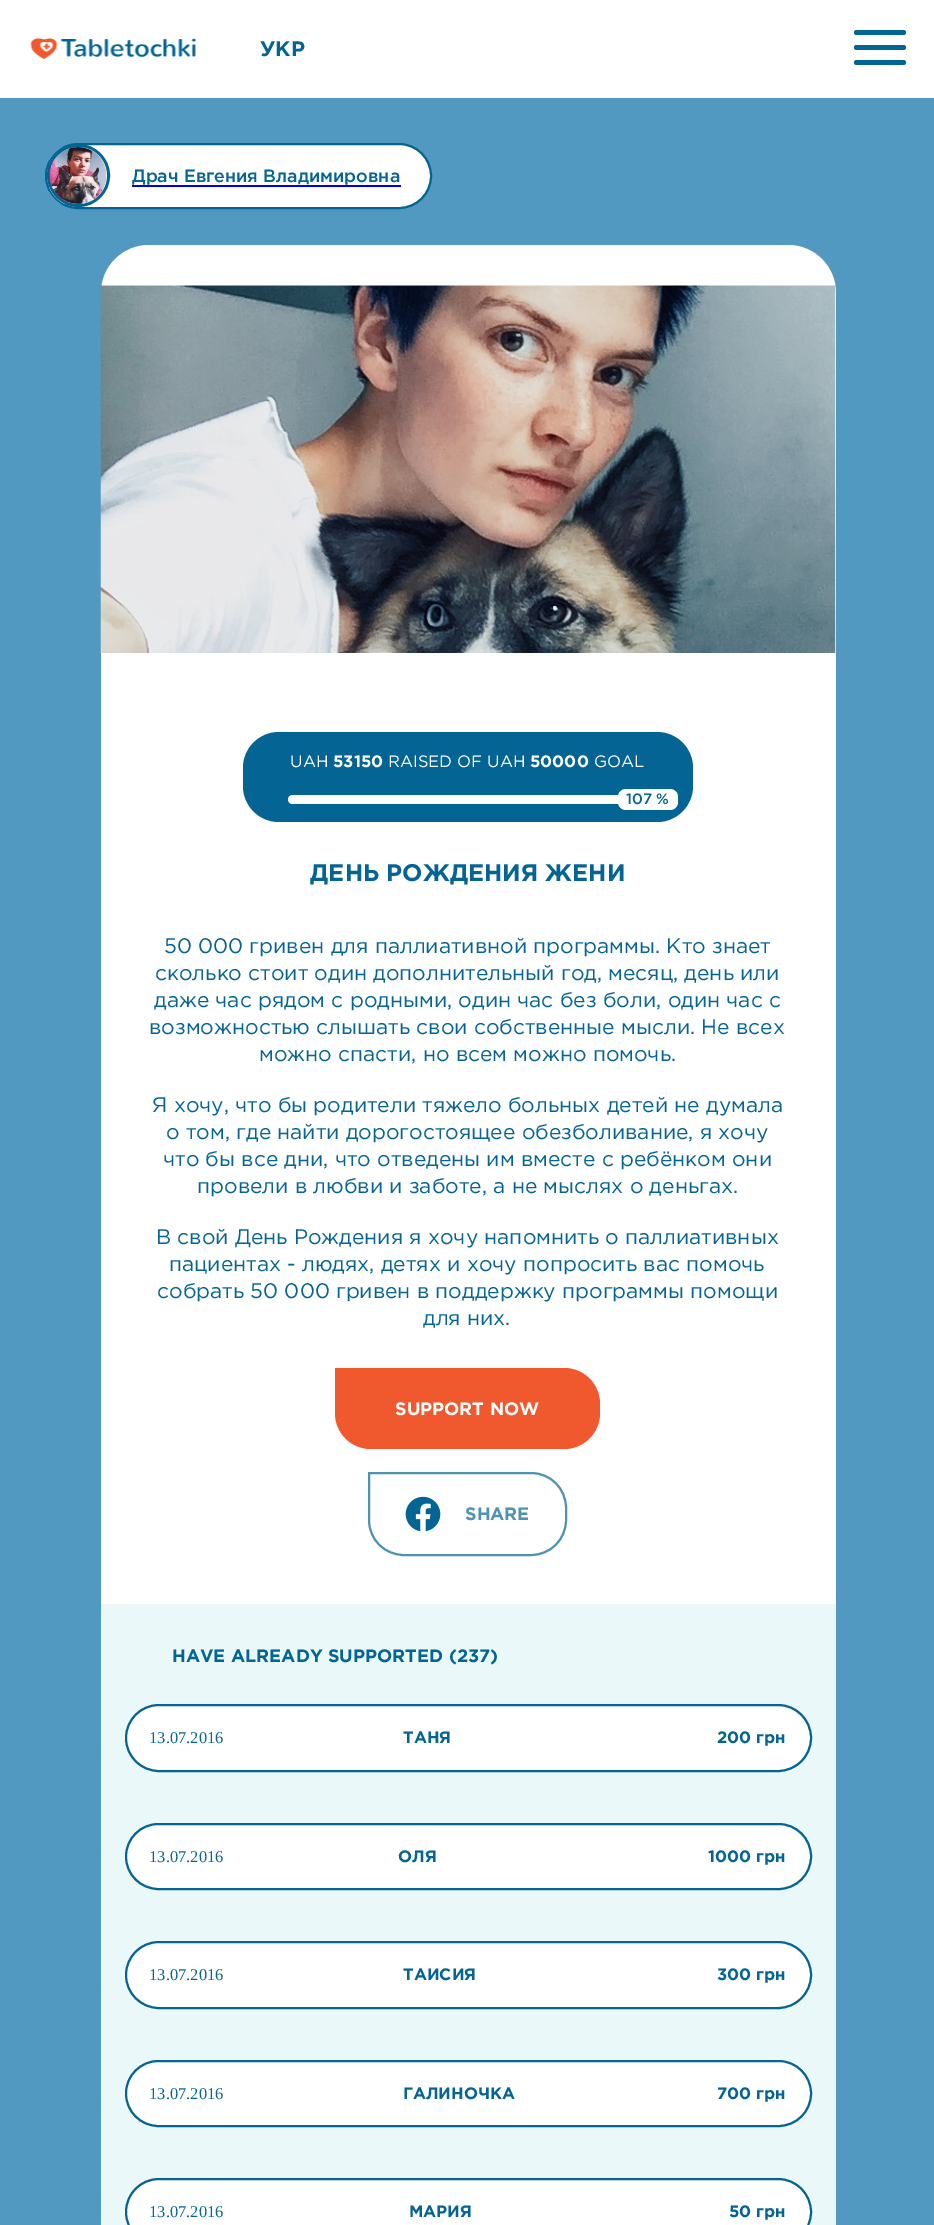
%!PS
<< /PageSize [934 2225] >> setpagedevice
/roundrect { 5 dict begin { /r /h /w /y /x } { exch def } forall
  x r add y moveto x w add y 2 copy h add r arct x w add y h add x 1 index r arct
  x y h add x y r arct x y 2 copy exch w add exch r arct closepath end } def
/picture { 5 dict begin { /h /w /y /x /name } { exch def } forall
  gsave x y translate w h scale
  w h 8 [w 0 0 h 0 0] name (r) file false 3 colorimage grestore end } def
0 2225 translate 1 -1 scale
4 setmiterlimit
1 setgray
0 0 934 2225 rectfill
(img1.rgb) 30 38 166 21 picture
/Gotham-Bold [21 0 0 -21 0 0] selectfont
0.016 0.392 0.576 setrgbcolor
260 56 moveto (УКР) show
854 30 52 5 2.5 roundrect fill
854 45 52 5 2.5 roundrect fill
854 60 52 5 2.5 roundrect fill
0.318 0.6 0.753 setrgbcolor
0 98 934 2127 rectfill
1 setgray
46 144 385 64 32 roundrect gsave fill grestore
0.016 0.392 0.576 setrgbcolor
2 setlinewidth
stroke
3 setlinewidth
newpath 78.5 175.5 30 0 360 arc closepath stroke
(img2.rgb) 49 147 58 57 picture
/Gotham-Medium [17.75 0 0 -17.75 0 0] selectfont
132 182 moveto (Драч Евгения Владимировна) show
0 0 0.933 setrgbcolor
132 185 269 2 rectfill
1 setgray
newpath 149 245 moveto 788 245 lineto 814.5 245 836 266.5 836 293 curveto 836 1604 lineto 101 1604 lineto 101 293 lineto 101 266.5 122.5 245 149 245 curveto closepath fill
(img3.rgb) 100 285 736 368 picture
0.016 0.392 0.576 setrgbcolor
243 732 450 90 36 roundrect fill
/Gotham-Regular [16.5 0 0 -16.5 0 0] selectfont
1 setgray
290 767 moveto (UAH) show
/Gotham-Bold [16.5 0 0 -16.5 0 0] selectfont
333 767 moveto (53150) show
/Gotham-Regular [16.5 0 0 -16.5 0 0] selectfont
388 767 moveto (RAISED OF UAH) show
/Gotham-Bold [16.5 0 0 -16.5 0 0] selectfont
530 767 moveto (50000) show
/Gotham-Regular [16.5 0 0 -16.5 0 0] selectfont
594 767 moveto (GOAL) show
288 795 360 9 4.5 roundrect fill
618 789 60 21 8 roundrect fill
/Gotham-Medium [15 0 0 -15 0 0] selectfont
0.016 0.392 0.576 setrgbcolor
626 804 moveto (107 %) show
/Gotham-Bold [24 0 0 -24 0 0] selectfont
310 881 moveto (ДЕНЬ РОЖДЕНИЯ ЖЕНИ) show
/Gotham-Regular [21 0 0 -21 0 0] selectfont
164 953 moveto (50 000 гривен для паллиативной программы. Кто знает) show
155 980 moveto (сколько стоит один дополнительный год, месяц, день или) show
154 1007 moveto (даже час рядом с родными, один час без боли, один час с) show
149 1034 moveto (возможностью слышать свои собственные мысли. Не всех) show
259 1061 moveto (можно спасти, но всем можно помочь.) show
152 1112 moveto (Я хочу, что бы родители тяжело больных детей не думала) show
166 1139 moveto (о том, где найти дорогостоящее обезболивание, я хочу) show
163 1166 moveto (что бы все дни, что отведены им вместе с ребёнком они) show
197 1193 moveto (провели в любви и заботе, а не мыслях о деньгах.) show
156 1244 moveto (В свой День Рождения я хочу напомнить о паллиативных) show
169 1271 moveto (пациентах - людях, детях и хочу попросить вас помочь) show
157 1298 moveto (собрать 50 000 гривен в поддержку программы помощи) show
423 1325 moveto (для них.) show
0.941 0.349 0.18 setrgbcolor
newpath 335 1368 moveto 564 1368 lineto 584 1368 600 1384 600 1404 curveto 600 1413 lineto 600 1433 584 1449 564 1449 curveto 371 1449 lineto 351 1449 335 1433 335 1413 curveto closepath fill
/Gotham-Bold [18 0 0 -18 0 0] selectfont
1 setgray
395 1415 moveto (SUPPORT NOW) show
0.31 0.576 0.702 setrgbcolor
2 setlinewidth
newpath 369 1473 moveto 531 1473 lineto 550.5 1473 566 1488.5 566 1508 curveto 566 1520 lineto 566 1539.5 550.5 1555 531 1555 curveto 404 1555 lineto 384.5 1555 369 1539.5 369 1520 curveto closepath stroke
(img4.rgb) 405 1496 36 36 picture
465 1520 moveto (SHARE) show
0.922 0.973 0.976 setrgbcolor
101 1604 735 621 rectfill
0.016 0.392 0.576 setrgbcolor
172 1662 moveto (HAVE ALREADY SUPPORTED \(237\)) show
1 setgray
126 1705 685 66 33 roundrect gsave fill grestore
0.016 0.392 0.576 setrgbcolor
stroke
/LiberationSerif-Regular [16.5 0 0 -16.5 0 0] selectfont
149 1743 moveto (13.07.2016) show
/Gotham-Bold [16.5 0 0 -16.5 0 0] selectfont
403 1743 moveto (ТАНЯ) show
717 1743 moveto (200 грн) show
1 setgray
126 1824 685 65 32.5 roundrect gsave fill grestore
0.016 0.392 0.576 setrgbcolor
stroke
/LiberationSerif-Regular [16.5 0 0 -16.5 0 0] selectfont
149 1862 moveto (13.07.2016) show
/Gotham-Bold [16.5 0 0 -16.5 0 0] selectfont
398 1862 moveto (ОЛЯ) show
708 1862 moveto (1000 грн) show
1 setgray
126 1942 685 66 33 roundrect gsave fill grestore
0.016 0.392 0.576 setrgbcolor
stroke
/LiberationSerif-Regular [16.5 0 0 -16.5 0 0] selectfont
149 1980 moveto (13.07.2016) show
/Gotham-Bold [16.5 0 0 -16.5 0 0] selectfont
403 1980 moveto (ТАИСИЯ) show
717 1980 moveto (300 грн) show
1 setgray
126 2061 685 65 32.5 roundrect gsave fill grestore
0.016 0.392 0.576 setrgbcolor
stroke
/LiberationSerif-Regular [16.5 0 0 -16.5 0 0] selectfont
149 2099 moveto (13.07.2016) show
/Gotham-Bold [16.5 0 0 -16.5 0 0] selectfont
403 2099 moveto (ГАЛИНОЧКА) show
717 2099 moveto (700 грн) show
1 setgray
126 2179 685 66 33 roundrect gsave fill grestore
0.016 0.392 0.576 setrgbcolor
stroke
/LiberationSerif-Regular [16.5 0 0 -16.5 0 0] selectfont
149 2217 moveto (13.07.2016) show
/Gotham-Bold [16.5 0 0 -16.5 0 0] selectfont
409 2217 moveto (МАРИЯ) show
729 2217 moveto (50 грн) show
showpage
